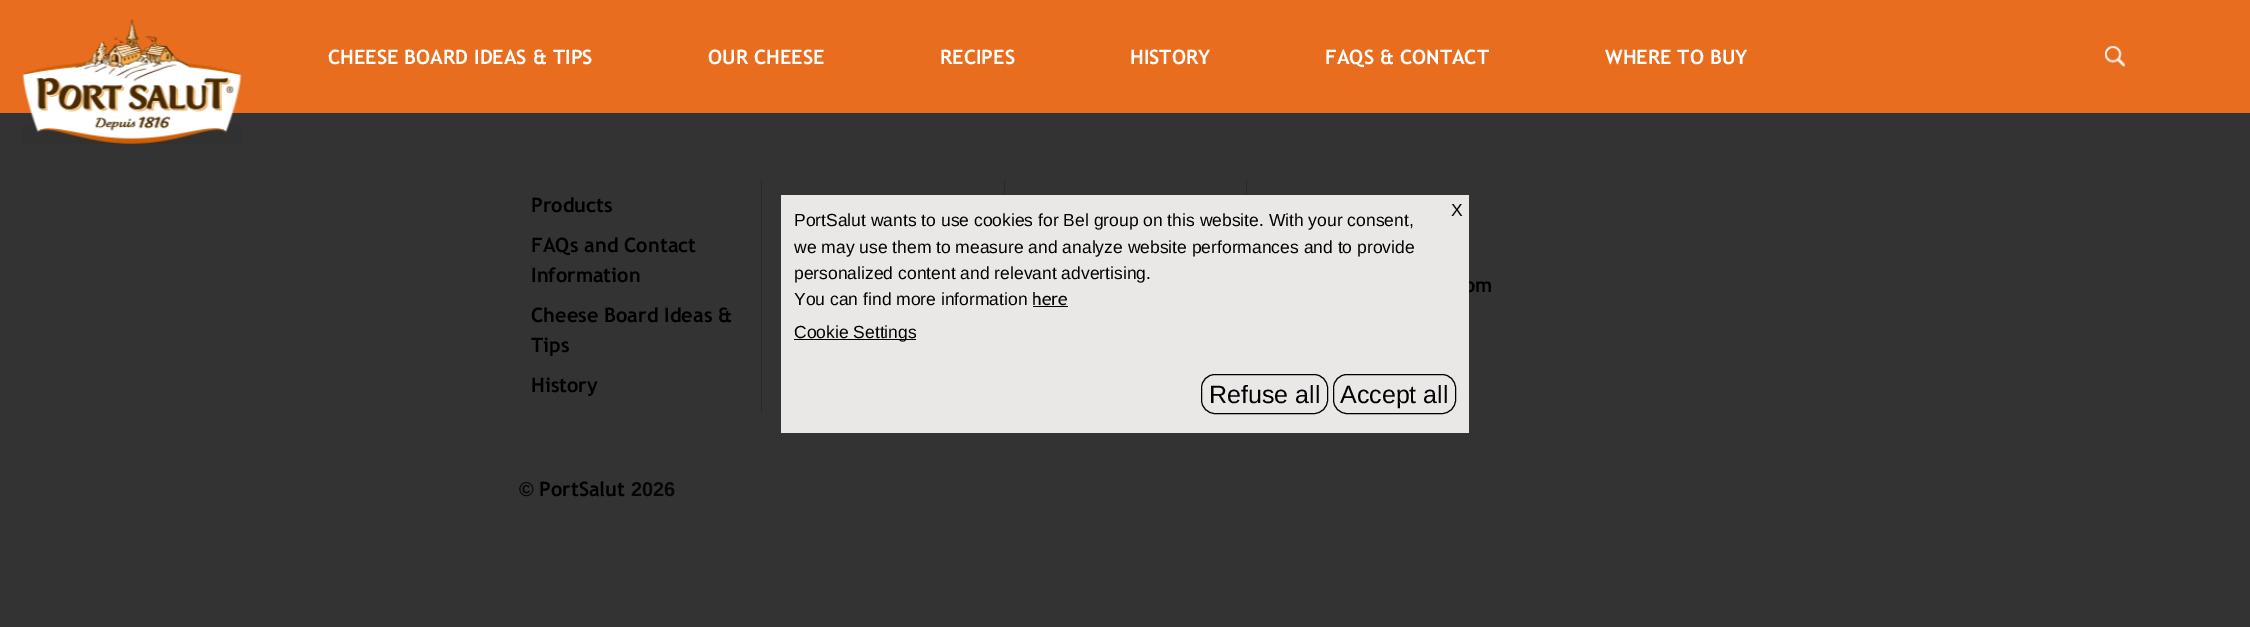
%!PS
<< /PageSize [2250 627] >> setpagedevice
/roundrect { 5 dict begin { /r /h /w /y /x } { exch def } forall
  x r add y moveto x w add y 2 copy h add r arct x w add y h add x 1 index r arct
  x y h add x y r arct x y 2 copy exch w add exch r arct closepath end } def
/picture { 5 dict begin { /h /w /y /x /name } { exch def } forall
  gsave x y translate w h scale
  w h 8 [w 0 0 h 0 0] name (r) file false 3 colorimage grestore end } def
0 627 translate 1 -1 scale
4 setmiterlimit
0.2 setgray
0 0 2250 627 rectfill
0.91 0.427 0.118 setrgbcolor
0 0 2250 113 rectfill
(img1.rgb) 22 19 220 125 picture
/TrebuchetMS-Bold [20 0 0 -20 0 0] selectfont
1 setgray
328 64 moveto (CHEESE BOARD IDEAS & TIPS) show
708 64 moveto (OUR CHEESE) show
940 64 moveto (RECIPES) show
1130 64 moveto (HISTORY) show
1325 64 moveto (FAQS & CONTACT) show
1605 64 moveto (WHERE TO BUY) show
(img2.rgb) 2105 46 20 21 picture
0.157 setgray
761 180 1 233 rectfill
1004 180 1 15 rectfill
0 setgray
531 212 moveto (Products) show
531 252 moveto (FAQs and Contact) show
531 282 moveto (Information) show
531 322 moveto (Cheese Board Ideas &) show
531 352 moveto (Tips) show
531 392 moveto (History) show
0.157 setgray
1246 180 1 15 rectfill
0 setgray
1464 292 moveto (om) show
0.918 0.906 0.906 setrgbcolor
781 195 688 238 rectfill
/LiberationSans-Regular [17.5 0 0 -17.5 0 0] selectfont
0 setgray
1451 216 moveto (X) show
794 226 moveto (PortSalut wants to use cookies for Bel group on this website. With your consent,) show
794 253 moveto (we may use them to measure and analyze website performances and to provide) show
794 279 moveto (personalized content and relevant advertising.) show
794 305 moveto (You can find more information) show
/TrebuchetMS-Regular [17.5 0 0 -17.5 0 0] selectfont
1032 305 moveto (here) show
1033 306 35 1 rectfill
794 339 122 1 rectfill
/LiberationSans-Regular [17.5 0 0 -17.5 0 0] selectfont
794 338 moveto (Cookie Settings) show
1201.5 374.5 126 39 13.5 roundrect stroke
/LiberationSans-Regular [25 0 0 -25 0 0] selectfont
1209 403 moveto (Refuse all) show
1333.5 374.5 122 39 13.5 roundrect stroke
1340 403 moveto (Accept all) show
/LiberationSans-Bold [20 0 0 -20 0 0] selectfont
0.024 setgray
519 496 moveto (©) show
/TrebuchetMS-Bold [20 0 0 -20 0 0] selectfont
0 setgray
539 496 moveto (PortSalut) show
/LiberationSans-Bold [20 0 0 -20 0 0] selectfont
0.024 setgray
631 496 moveto (2026) show
showpage
